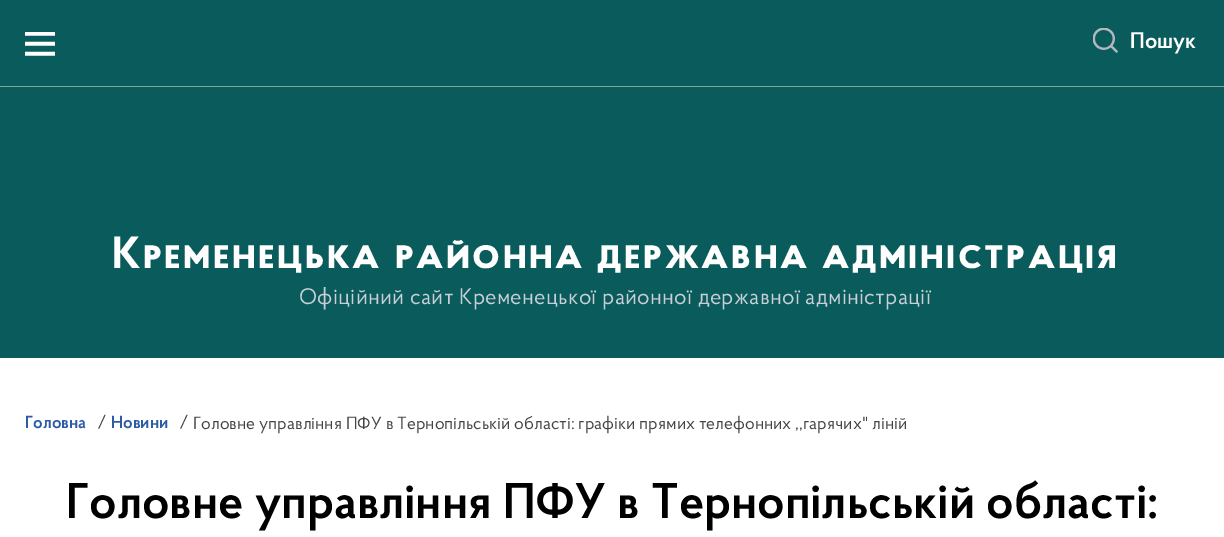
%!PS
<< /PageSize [1224 537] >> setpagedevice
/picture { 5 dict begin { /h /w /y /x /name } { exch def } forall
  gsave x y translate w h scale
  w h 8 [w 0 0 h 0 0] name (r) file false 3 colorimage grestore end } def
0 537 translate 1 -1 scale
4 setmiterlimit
1 setgray
0 0 1224 537 rectfill
0.035 0.357 0.361 setrgbcolor
0 0 1224 358 rectfill
0.514 0.647 0.596 setrgbcolor
0 86 1224 1 rectfill
(img1.rgb) 25 32 30 24 picture
(img2.rgb) 1093 28 25 25 picture
/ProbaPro-SemiBold [22.5 0 0 -22.5 0 0] selectfont
1 setgray
1130 48 moveto (Пошук) show
/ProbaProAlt-Bold [45 0 0 -45 0 0] selectfont
112 268 moveto 2.5 0 (Кременецька районна державна адміністрація) ashow
/ProbaPro-Regular [22.5 0 0 -22.5 0 0] selectfont
0.784 0.812 0.843 setrgbcolor
299 304 moveto 0.25 0 (Офіційний сайт Кременецької районної державної адміністрації) ashow
/ProbaPro-SemiBold [17.5 0 0 -17.5 0 0] selectfont
0.176 0.361 0.651 setrgbcolor
25 428 moveto (Головна) show
/ProbaPro-Regular [17.5 0 0 -17.5 0 0] selectfont
0.267 setgray
97 428 moveto (/) show
/ProbaPro-SemiBold [17.5 0 0 -17.5 0 0] selectfont
0.176 0.361 0.651 setrgbcolor
111 428 moveto (Новини) show
/ProbaPro-Regular [17.5 0 0 -17.5 0 0] selectfont
0.267 setgray
179 428 moveto (/) show
193 429 moveto (Головне управління ПФУ в Тернопільській області: графіки прямих телефонних ,,гарячих" ліній) show
/ProbaPro-SemiBold [50 0 0 -50 0 0] selectfont
0 setgray
66 518 moveto (Головне управління ПФУ в Тернопільській області:) show
showpage
